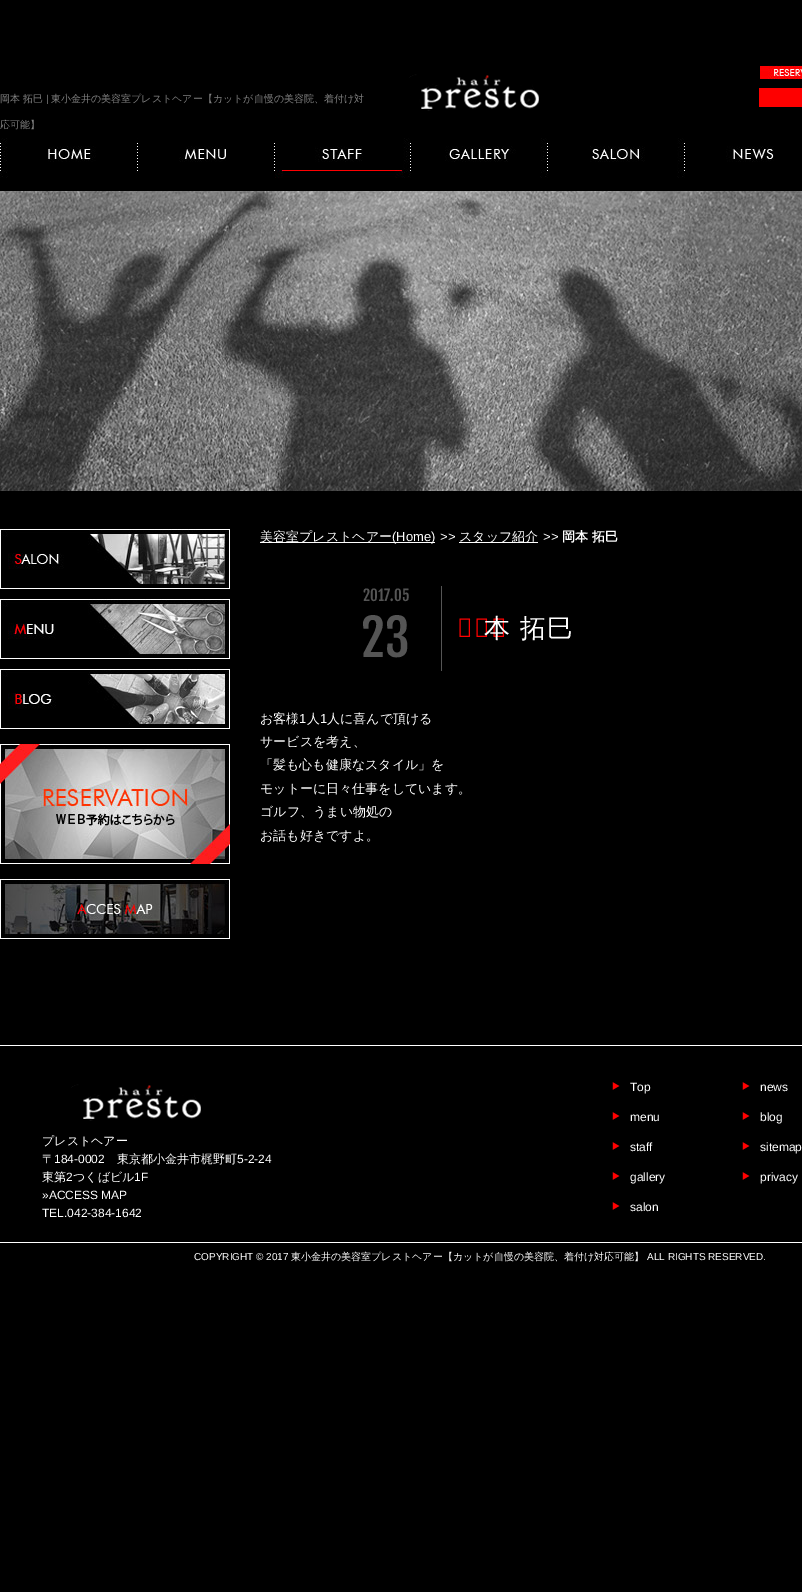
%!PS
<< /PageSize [802 1592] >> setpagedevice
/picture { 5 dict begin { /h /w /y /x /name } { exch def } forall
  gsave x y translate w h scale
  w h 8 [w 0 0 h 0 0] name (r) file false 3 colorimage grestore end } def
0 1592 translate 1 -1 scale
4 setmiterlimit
0 setgray
0 0 802 1592 rectfill
/WenQuanYiZenHei-Medium [10 0 0 -10 0 0] selectfont
0.502 setgray
0 102 moveto (岡本 拓巳) show
/LiberationSans-Regular [10 0 0 -10 0 0] selectfont
46 102 moveto (|) show
/WenQuanYiZenHei-Medium [10 0 0 -10 0 0] selectfont
51 102 moveto (東小金井の美容室プレストヘアー【カットが自慢の美容院、着付け対) show
0 128 moveto (応可能】) show
(img1.rgb) 409 74 130 37 picture
(img2.rgb) 760 65 42 15 picture
0.996 0 0 setrgbcolor
759 88 43 19 rectfill
(img3.rgb) 0 138 138 40 picture
(img4.rgb) 179 143 96 28 picture
(img5.rgb) 275 138 136 40 picture
(img6.rgb) 445 138 103 40 picture
(img7.rgb) 590 138 95 40 picture
(img8.rgb) 726 146 48 16 picture
(img9.rgb) 0 191 802 300 picture
(img10.rgb) 0 529 230 60 picture
(img11.rgb) 0 599 230 60 picture
(img12.rgb) 0 669 230 60 picture
(img13.rgb) 0 744 230 120 picture
(img14.rgb) 0 879 230 60 picture
1 setgray
260 542 175 1 rectfill
/WenQuanYiZenHei-Medium [13 0 0 -13 0 0] selectfont
260 541 moveto (美容室プレストヘアー) show
/LiberationSans-Regular [13 0 0 -13 0 0] selectfont
392 541 moveto (\(Home\)) show
440 541 moveto (>>) show
459 542 79 1 rectfill
/WenQuanYiZenHei-Medium [13 0 0 -13 0 0] selectfont
459 541 moveto (スタッフ紹介) show
/LiberationSans-Regular [13 0 0 -13 0 0] selectfont
543 541 moveto (>>) show
/WenQuanYiZenHei-Bold [13 0 0 -13 0 0] selectfont
562 541 moveto (岡本 拓巳) show
0.333 setgray
441 586 1 85 rectfill
/FjallaOne-Regular [15 0 0 -15 0 0] selectfont
363 601 moveto (2017.05) show
/FjallaOne-Regular [50 0 0 -50 0 0] selectfont
361 657 moveto (23) show
/NotoSans-Regular [26 0 0 -26 0 0] selectfont
1 0 0 setrgbcolor
457 637 moveto 1.5 0 (岡) ashow
/WenQuanYiZenHei-Medium [26 0 0 -26 0 0] selectfont
1 setgray
484 637 moveto -1 0 32 1.5 0 (本 拓巳) awidthshow
/WenQuanYiZenHei-Medium [13 0 0 -13 0 0] selectfont
260 723 moveto (お客様) show
/LiberationSans-Regular [13 0 0 -13 0 0] selectfont
299 723 moveto (1) show
/WenQuanYiZenHei-Medium [13 0 0 -13 0 0] selectfont
307 723 moveto (人) show
/LiberationSans-Regular [13 0 0 -13 0 0] selectfont
320 723 moveto (1) show
/WenQuanYiZenHei-Medium [13 0 0 -13 0 0] selectfont
327 723 moveto (人に喜んで頂ける) show
260 746 moveto (サービスを考え、) show
260 769 moveto (「髪も心も健康なスタイル」を) show
260 793 moveto (モットーに日々仕事をしています。) show
260 816 moveto (ゴルフ、うまい物処の) show
260 840 moveto (お話も好きですよ。) show
0 1045 802 1 rectfill
(img1.rgb) 71 1084 130 37 picture
/WenQuanYiZenHei-Medium [12 0 0 -12 0 0] selectfont
42 1145 moveto (プレストヘアー) show
42 1163 moveto (〒) show
/LiberationSans-Regular [12 0 0 -12 0 0] selectfont
54 1163 moveto (184-0002) show
/WenQuanYiZenHei-Medium [12 0 0 -12 0 0] selectfont
117 1163 moveto (東京都小金井市梶野町) show
/LiberationSans-Regular [12 0 0 -12 0 0] selectfont
237 1163 moveto (5-2-24) show
/WenQuanYiZenHei-Medium [12 0 0 -12 0 0] selectfont
42 1181 moveto (東第) show
/LiberationSans-Regular [12 0 0 -12 0 0] selectfont
66 1181 moveto (2) show
/WenQuanYiZenHei-Medium [12 0 0 -12 0 0] selectfont
73 1181 moveto (つくばビル) show
/LiberationSans-Regular [12 0 0 -12 0 0] selectfont
134 1181 moveto (1F) show
42 1199 moveto (»ACCESS MAP) show
42 1217 moveto (TEL.042-384-1642) show
(img15.rgb) 612 1082 8 8 picture
630 1091 moveto (Top) show
(img15.rgb) 612 1112 8 8 picture
630 1121 moveto (menu) show
(img15.rgb) 612 1142 8 8 picture
630 1151 moveto (staff) show
(img15.rgb) 612 1172 8 8 picture
630 1181 moveto (gallery) show
(img15.rgb) 612 1202 8 8 picture
630 1211 moveto (salon) show
(img15.rgb) 742 1082 8 8 picture
760 1091 moveto (news) show
(img15.rgb) 742 1112 8 8 picture
760 1121 moveto (blog) show
(img15.rgb) 742 1142 8 8 picture
760 1151 moveto (sitemap) show
(img15.rgb) 742 1172 8 8 picture
760 1181 moveto (privacy) show
0 1242 802 1 rectfill
/LiberationSans-Regular [10 0 0 -10 0 0] selectfont
194 1260 moveto (COPYRIGHT © 2017) show
/WenQuanYiZenHei-Medium [10 0 0 -10 0 0] selectfont
291 1260 moveto (東小金井の美容室プレストヘアー【カットが自慢の美容院、着付け対応可能】) show
/LiberationSans-Regular [10 0 0 -10 0 0] selectfont
647 1260 moveto (ALL RIGHTS RESERVED.) show
showpage
